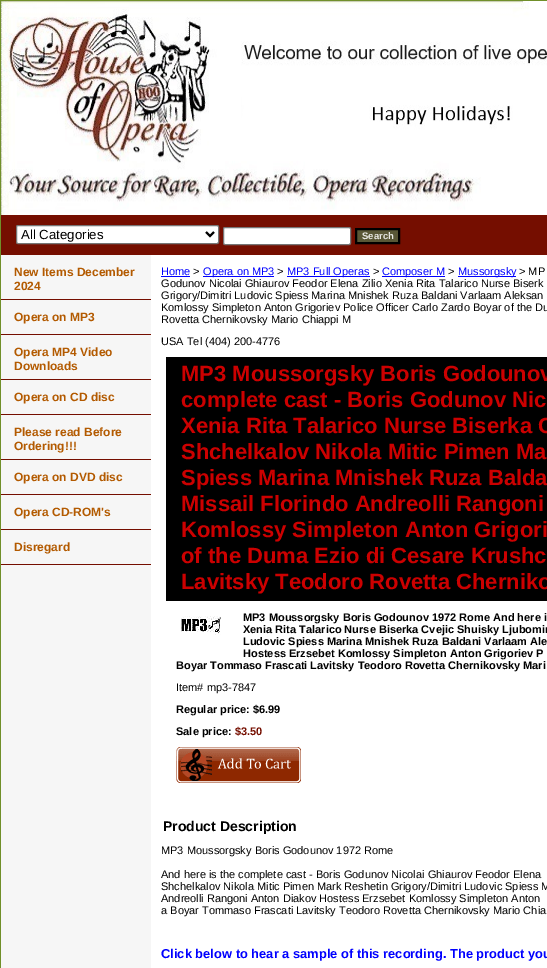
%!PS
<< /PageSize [547 968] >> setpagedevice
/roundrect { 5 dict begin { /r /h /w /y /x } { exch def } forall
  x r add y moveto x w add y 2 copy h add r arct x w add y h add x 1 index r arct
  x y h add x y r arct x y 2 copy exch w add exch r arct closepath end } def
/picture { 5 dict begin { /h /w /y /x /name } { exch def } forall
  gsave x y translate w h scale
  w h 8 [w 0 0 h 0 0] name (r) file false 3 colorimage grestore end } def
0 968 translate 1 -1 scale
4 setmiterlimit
1 setgray
0 0 547 968 rectfill
0.439 0.561 0.161 setrgbcolor
0.5 0.5 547 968 rectstroke
(img1.rgb) 1 1 546 214 picture
0.459 0.055 0 setrgbcolor
1 215 546 40 rectfill
1 setgray
16.5 225.5 202 18 1.5 roundrect gsave fill grestore
0.463 setgray
stroke
0 setgray
2 setlinewidth
newpath 206 232 moveto 210 236 lineto 214 232 lineto stroke
/LiberationSans-Regular [13.25 0 0 -13.25 0 0] selectfont
21 239 moveto (All Categories) show
1 setgray
223.5 227.5 127 17 1.5 roundrect gsave fill grestore
0.463 setgray
1 setlinewidth
stroke
0.349 0.341 0.212 setrgbcolor
newpath 356 229 moveto 399 229 lineto 399 243 lineto 356 243 lineto closepath gsave fill grestore
0 setgray
2 setlinewidth
stroke
/LiberationSans-Bold [9.5 0 0 -9.5 0 0] selectfont
0.914 0.914 0.894 setrgbcolor
362 239 moveto (Search) show
0.965 setgray
1 255 150 713 rectfill
0.459 0.055 0 setrgbcolor
1 299 150 1 rectfill
/LiberationSans-Bold [12 0 0 -12 0 0] selectfont
0.702 0.353 0 setrgbcolor
14 276 moveto (New Items December) show
14 290 moveto (2024) show
0.459 0.055 0 setrgbcolor
1 334 150 1 rectfill
0.702 0.353 0 setrgbcolor
14 321 moveto (Opera on MP3) show
0.459 0.055 0 setrgbcolor
1 379 150 1 rectfill
0.702 0.353 0 setrgbcolor
14 356 moveto (Opera MP4 Video) show
14 370 moveto (Downloads) show
0.459 0.055 0 setrgbcolor
1 414 150 1 rectfill
0.702 0.353 0 setrgbcolor
14 401 moveto (Opera on CD disc) show
0.459 0.055 0 setrgbcolor
1 459 150 1 rectfill
0.702 0.353 0 setrgbcolor
14 436 moveto (Please read Before) show
14 450 moveto (Ordering!!!) show
0.459 0.055 0 setrgbcolor
1 494 150 1 rectfill
0.702 0.353 0 setrgbcolor
14 481 moveto (Opera on DVD disc) show
0.459 0.055 0 setrgbcolor
1 529 150 1 rectfill
0.702 0.353 0 setrgbcolor
14 516 moveto (Opera CD-ROM's) show
0.459 0.055 0 setrgbcolor
1 564 150 1 rectfill
0.702 0.353 0 setrgbcolor
14 551 moveto (Disregard) show
/LiberationSans-Regular [11 0 0 -11 0 0] selectfont
0 0 1 setrgbcolor
161 275 moveto (Home) show
161 276 29 1 rectfill
0 setgray
193 275 moveto (>) show
0 0 1 setrgbcolor
203 276 71 1 rectfill
203 275 moveto (Opera on MP3) show
0 setgray
277 275 moveto (>) show
0 0 1 setrgbcolor
287 276 83 1 rectfill
287 275 moveto (MP3 Full Operas) show
0 setgray
373 275 moveto (>) show
0 0 1 setrgbcolor
382 276 63 1 rectfill
382 275 moveto (Composer M) show
0 setgray
448 275 moveto (>) show
0 0 1 setrgbcolor
458 276 58 1 rectfill
458 275 moveto (Mussorgsky) show
0 setgray
519 275 moveto (> MP) show
161 287 moveto (Godunov Nicolai Ghiaurov Feodor Elena Zilio Xenia Rita Talarico Nurse Biserk) show
161 299 moveto (Grigory/Dimitri Ludovic Spiess Marina Mnishek Ruza Baldani Varlaam Aleksan) show
161 311 moveto (Komlossy Simpleton Anton Grigoriev Police Officer Carlo Zardo Boyar of the Du) show
161 323 moveto (Rovetta Chernikovsky Mario Chiappi M) show
161 345 moveto (USA Tel \(404\) 200-4776) show
166 357 381 244 rectfill
/LiberationSans-Bold [22 0 0 -22 0 0] selectfont
0.8 0 0 setrgbcolor
181 381 moveto (MP3 Moussorgsky Boris Godounov) show
181 407 moveto (complete cast - Boris Godunov Nic) show
181 433 moveto (Xenia Rita Talarico Nurse Biserka C) show
181 459 moveto (Shchelkalov Nikola Mitic Pimen Ma) show
181 485 moveto (Spiess Marina Mnishek Ruza Balda) show
181 511 moveto (Missail Florindo Andreolli Rangoni) show
181 537 moveto (Komlossy Simpleton Anton Grigori) show
181 563 moveto (of the Duma Ezio di Cesare Krushc) show
181 589 moveto (Lavitsky Teodoro Rovetta Cherniko) show
/LiberationSans-Bold [11 0 0 -11 0 0] selectfont
0 setgray
243 621 moveto (MP3 Moussorgsky Boris Godounov 1972 Rome And here i) show
243 633 moveto (Xenia Rita Talarico Nurse Biserka Cvejic Shuisky Ljubomir) show
243 645 moveto (Ludovic Spiess Marina Mnishek Ruza Baldani Varlaam Ale) show
243 657 moveto (Hostess Erzsebet Komlossy Simpleton Anton Grigoriev P) show
176 669 moveto (Boyar Tommaso Frascati Lavitsky Teodoro Rovetta Chernikovsky Mari) show
/LiberationSans-Regular [11 0 0 -11 0 0] selectfont
176 691 moveto (Item# mp3-7847) show
/LiberationSans-Bold [11 0 0 -11 0 0] selectfont
176 713 moveto (Regular price: $6.99) show
176 735 moveto (Sale price:) show
0.459 0.055 0 setrgbcolor
235 735 moveto ($3.50) show
(img2.rgb) 176 747 125 36 picture
(img3.rgb) 181 616 40 19 picture
/LiberationSans-Bold [14 0 0 -14 0 0] selectfont
0 setgray
163 831 moveto (Product Description) show
/LiberationSans-Regular [11 0 0 -11 0 0] selectfont
161 854 moveto (MP3 Moussorgsky Boris Godounov 1972 Rome) show
161 878 moveto (And here is the complete cast - Boris Godunov Nicolai Ghiaurov Feodor Elena) show
161 890 moveto (Shchelkalov Nikola Mitic Pimen Mark Reshetin Grigory/Dimitri Ludovic Spiess M) show
161 902 moveto (Andreolli Rangoni Anton Diakov Hostess Erzsebet Komlossy Simpleton Anton) show
161 914 moveto (a Boyar Tommaso Frascati Lavitsky Teodoro Rovetta Chernikovsky Mario Chia) show
/LiberationSans-Bold [12.9 0 0 -12.9 0 0] selectfont
0 0 1 setrgbcolor
161 958 moveto (Click below to hear a sample of this recording. The product you) show
showpage
